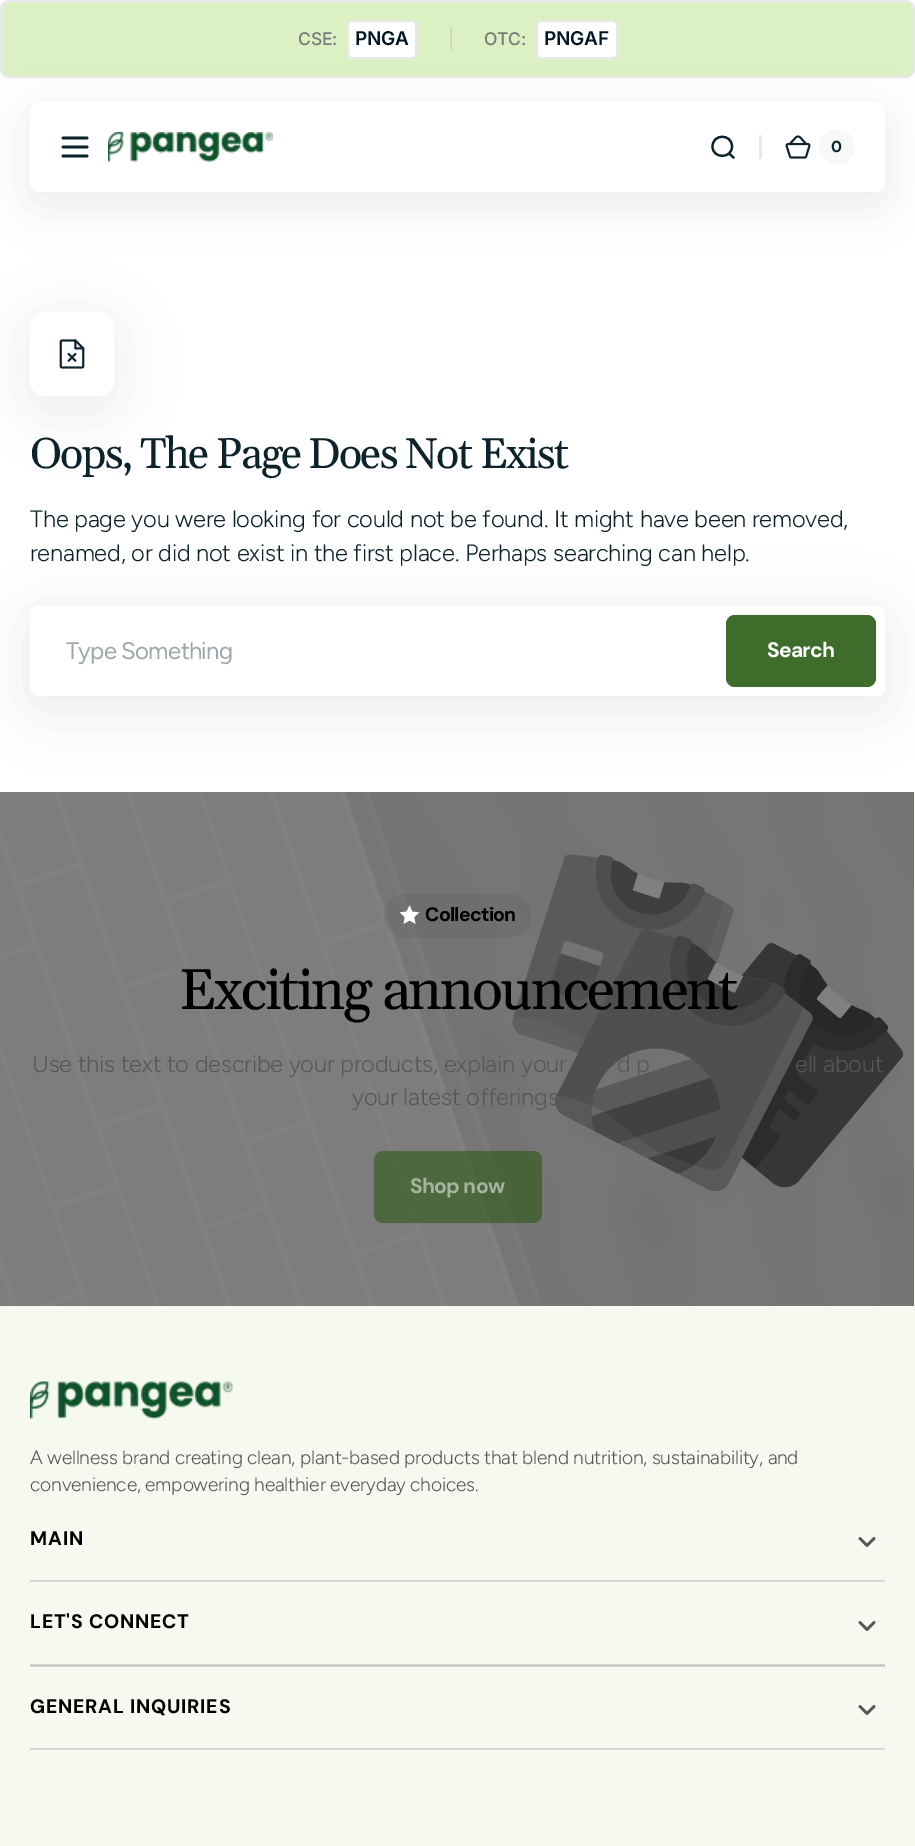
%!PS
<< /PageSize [915 1846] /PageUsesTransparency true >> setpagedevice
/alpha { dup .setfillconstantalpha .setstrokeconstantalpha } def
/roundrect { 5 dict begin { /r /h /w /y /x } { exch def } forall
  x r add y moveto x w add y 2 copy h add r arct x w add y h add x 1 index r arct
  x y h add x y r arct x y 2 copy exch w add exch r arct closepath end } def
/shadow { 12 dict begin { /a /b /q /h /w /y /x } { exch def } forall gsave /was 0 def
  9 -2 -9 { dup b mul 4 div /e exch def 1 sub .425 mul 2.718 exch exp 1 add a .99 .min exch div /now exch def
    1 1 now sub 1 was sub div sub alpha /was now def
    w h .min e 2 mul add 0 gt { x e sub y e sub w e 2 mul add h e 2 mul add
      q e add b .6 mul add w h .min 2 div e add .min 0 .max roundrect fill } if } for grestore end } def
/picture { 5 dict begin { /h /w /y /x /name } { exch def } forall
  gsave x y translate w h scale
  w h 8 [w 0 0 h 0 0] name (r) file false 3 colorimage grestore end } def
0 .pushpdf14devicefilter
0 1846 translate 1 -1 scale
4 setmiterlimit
1 setgray
0 0 915 1846 rectfill
0.863 0.945 0.765 setrgbcolor
1 1 913 76 8 roundrect gsave fill grestore
0.902 0.91 0.914 setrgbcolor
2 setlinewidth
stroke
/Inter-Medium [17.5 0 0 -17.5 0 0] selectfont
0.475 setgray
298 45 moveto -0.2 0 (CSE:) ashow
1 setgray
348 21 68 37 4 roundrect gsave fill grestore
0.902 0.91 0.914 setrgbcolor
stroke
/Inter-SemiBold [19 0 0 -19 0 0] selectfont
0.004 0.086 0.141 setrgbcolor
355 45 moveto -0.2 0 (PNGA) ashow
/Inter-Regular [19 0 0 -19 0 0] selectfont
0.8 setgray
448 45 moveto -0.2 0 (|) ashow
/Inter-Medium [17.5 0 0 -17.5 0 0] selectfont
0.475 setgray
484 45 moveto -0.2 0 (OTC:) ashow
1 setgray
537 21 80 37 4 roundrect gsave fill grestore
0.902 0.91 0.914 setrgbcolor
stroke
/Inter-SemiBold [19 0 0 -19 0 0] selectfont
0.004 0.086 0.141 setrgbcolor
544 45 moveto -0.2 0 (PNGAF) ashow
0.051 0.137 0.169 setrgbcolor
30 114 855 90 9 22.5 0.08 shadow
1 setgray
30 102 855 90 9 roundrect fill
0.051 0.137 0.169 setrgbcolor
2.7 setlinewidth
1 setlinecap
newpath 63 138 moveto 87 138 lineto 63 147 moveto 87 147 lineto 63 156 moveto 87 156 lineto stroke
(img1.rgb) 108 132 165 30 picture
2.2 setlinewidth
newpath 729 153.5 moveto 733.5 157.5 lineto 732 146.5 moveto 732 159 712.5 159 712.5 146.5 curveto 712.5 133.5 732 133.5 732 146.5 curveto closepath stroke
0.902 0.91 0.914 setrgbcolor
759 135 3 24 1.5 roundrect fill
(img2.rgb) 785 135 26 24 picture
0.969 0.973 0.973 setrgbcolor
newpath 837 147 18 0 360 arc closepath fill
/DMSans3-Bold [16 0 0 -16 0 0] selectfont
0.051 0.137 0.169 setrgbcolor
831 152 moveto -0.2 0 (0) ashow
30 324 84 84 15 30 0.08 shadow
1 setgray
30 312 84 84 15 roundrect fill
(img3.rgb) 59 339 26 30 picture
/Gelasio-Regular [43.1 0 0 -43.1 0 0] selectfont
0.051 0.137 0.169 setrgbcolor
30 468 moveto -1.75 0 (Oops, The Page Does Not Exist) ashow
/Figtree-Light [23.7 0 0 -23.7 0 0] selectfont
30 527 moveto -0.2 0 (The page you were looking for could not be found. It might have been removed,) ashow
30 561 moveto -0.2 0 (renamed, or did not exist in the first place. Perhaps searching can help.) ashow
0.965 0.976 0.941 setrgbcolor
0 792 915 1054 rectfill
(img4.rgb) 0 792 914 514 picture
0.004 0.086 0.141 setrgbcolor
30 618 855 90 9 30 0.08 shadow
1 setgray
30 606 855 90 9 roundrect fill
/Figtree-Regular [24 0 0 -24 0 0] selectfont
0.62 0.655 0.667 setrgbcolor
66 659 moveto -0.75 0 (Type Something) ashow
0.243 0.424 0.165 setrgbcolor
726 615 150 72 9 roundrect fill
/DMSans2-Bold [21 0 0 -21 0 0] selectfont
1 setgray
767 657 moveto -0.75 0 (Search) ashow
0.2 alpha
0.341 setgray
384 894 147 44 22 roundrect fill
1 alpha
(img5.rgb) 399 905 21 19 picture
/DMSans-Bold [19.5 0 0 -19.5 0 0] selectfont
0 setgray
425 921 moveto -0.75 0 (Collection) ashow
/Gelasio-Regular [57.5 0 0 -57.5 0 0] selectfont
179 1009 moveto -2.3 0 (Exciting announcement) ashow
/Figtree-Light [23.7 0 0 -23.7 0 0] selectfont
0.341 setgray
32 1072 moveto -0.2 0 (Use this text to describe your products, explain your) ashow
617 1072 moveto -0.2 0 (d p) ashow
795 1072 moveto -0.2 0 (ell about) ashow
352 1105 moveto -0.2 0 (your latest offerings) ashow
0.5 alpha
0.114 0.325 0.004 setrgbcolor
374 1151 168 72 9 roundrect fill
/DMSans2-Bold [21 0 0 -21 0 0] selectfont
1 alpha
0.651 0.702 0.624 setrgbcolor
410 1193 moveto -0.75 0 (Shop now) ashow
0.839 0.851 0.82 setrgbcolor
30 1666 855 1 rectfill
(img6.rgb) 30 1381 203 38 picture
/Figtree-Light [19.2 0 0 -19.2 0 0] selectfont
0.341 setgray
30 1464 moveto -0.2 0 (A wellness brand creating clean, plant-based products that blend nutrition, sustainability, and) ashow
30 1491 moveto -0.2 0 (convenience, empowering healthier everyday choices.) ashow
0.839 0.851 0.82 setrgbcolor
30 1580 855 2 rectfill
/DMSans-Bold [19.5 0 0 -19.5 0 0] selectfont
0 setgray
30 1545 moveto 0.75 0 (MAIN) ashow
0.341 setgray
2.7 setlinewidth
1 setlinejoin
newpath 874 1538.5 moveto 867 1545.5 lineto 860 1538.5 lineto stroke
0.839 0.851 0.82 setrgbcolor
30 1664 855 1 rectfill
0.741 0.749 0.725 setrgbcolor
30 1665 855 1 rectfill
0 setgray
30 1628 moveto 0.75 0 (LET'S CONNECT) ashow
0.341 setgray
newpath 874 1622.5 moveto 867 1629.5 lineto 860 1622.5 lineto stroke
0.839 0.851 0.82 setrgbcolor
30 1748 855 2 rectfill
0 setgray
30 1713 moveto 0.75 0 (GENERAL INQUIRIES) ashow
0.341 setgray
newpath 874 1706.5 moveto 867 1713.5 lineto 860 1706.5 lineto stroke
.poppdf14devicefilter showpage
